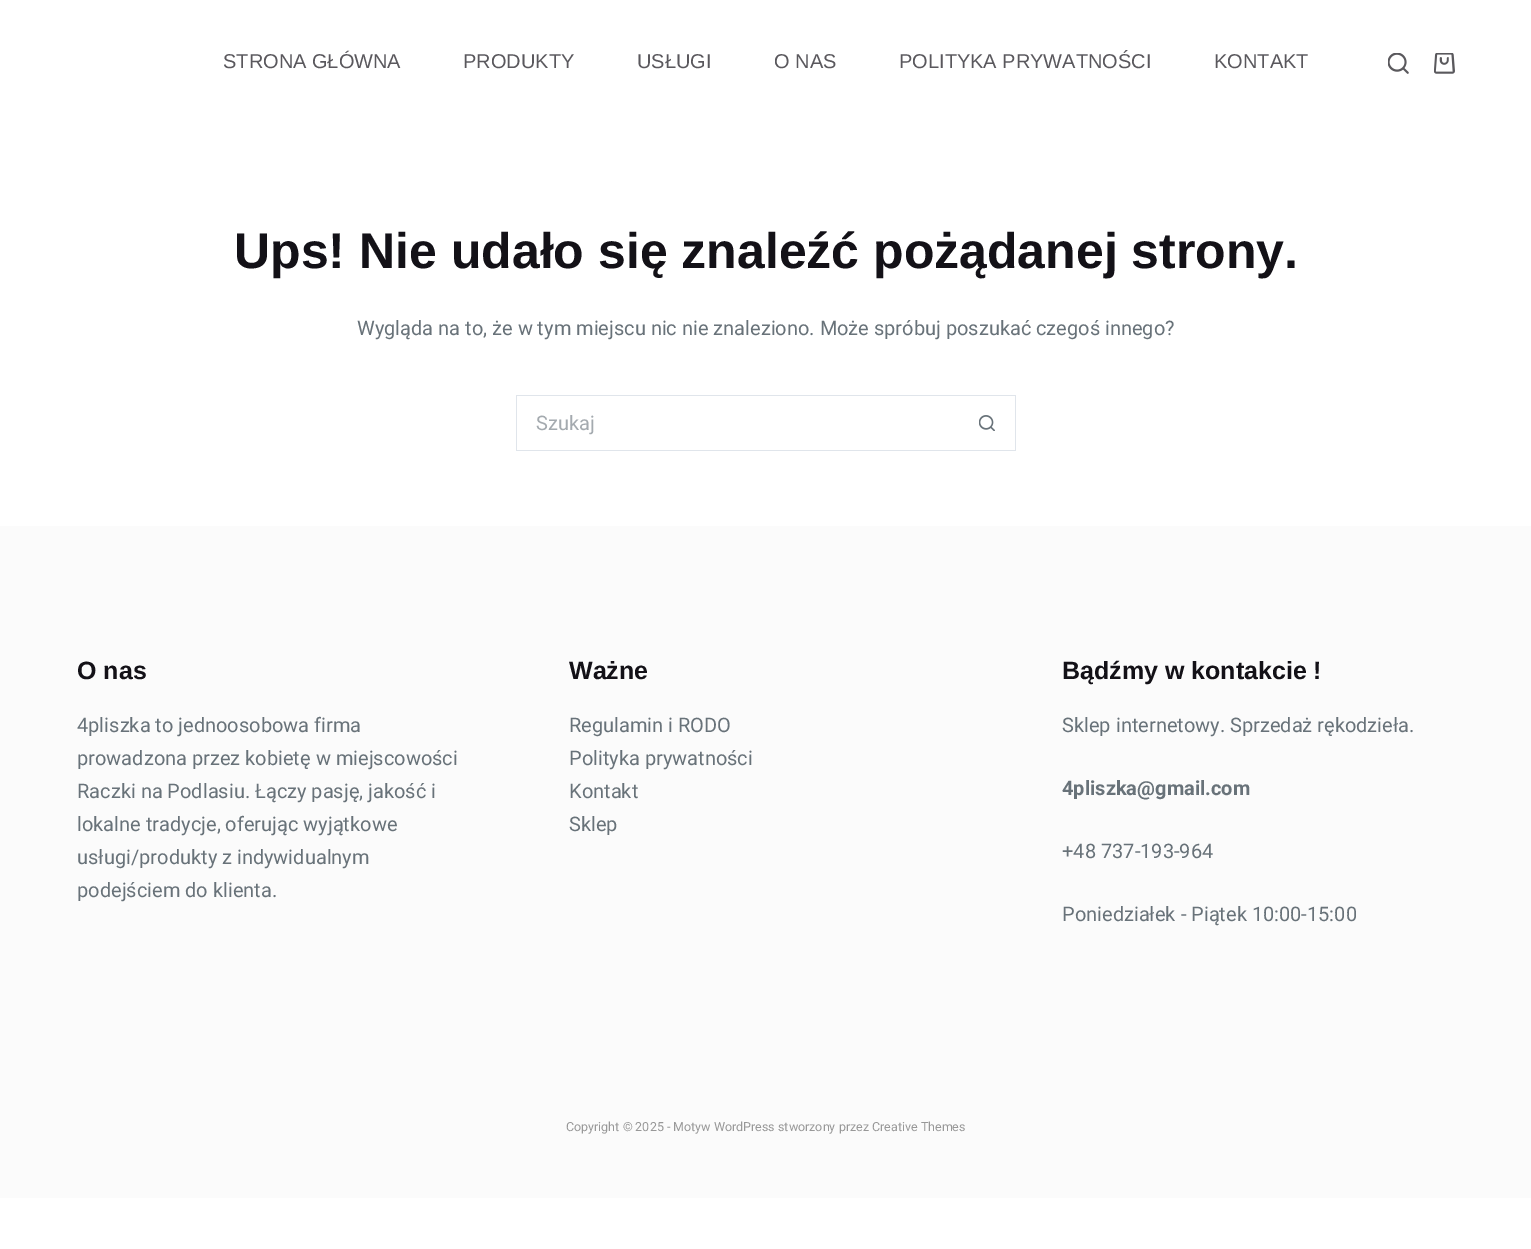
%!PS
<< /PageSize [1531 1249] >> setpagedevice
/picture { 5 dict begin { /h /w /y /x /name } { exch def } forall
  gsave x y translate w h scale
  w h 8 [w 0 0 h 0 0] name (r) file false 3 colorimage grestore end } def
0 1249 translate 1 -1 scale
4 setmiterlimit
1 setgray
0 0 1531 1249 rectfill
/LiberationSans-Regular [20 0 0 -20 0 0] selectfont
0.353 0.345 0.365 setrgbcolor
223 68 moveto (STRONA GŁÓWNA) show
463 68 moveto (PRODUKTY) show
637 68 moveto (USŁUGI) show
774 68 moveto (O NAS) show
899 68 moveto (POLITYKA PRYWATNOŚCI) show
1214 68 moveto (KONTAKT) show
(img1.rgb) 1388 53 21 21 picture
(img2.rgb) 1434 53 21 21 picture
/LiberationSans-Bold [50 0 0 -50 0 0] selectfont
0.075 0.067 0.09 setrgbcolor
234 268 moveto (Ups! Nie udało się znaleźć pożądanej strony.) show
/Roboto-Regular [20 0 0 -20 0 0] selectfont
0.408 0.447 0.475 setrgbcolor
357 335 moveto (Wygląda na to, że w tym miejscu nic nie znaleziono. Może spróbuj poszukać czegoś innego?) show
0.878 0.898 0.922 setrgbcolor
516 395 500 1 rectfill
516 450 444 1 rectfill
516 395 1 56 rectfill
0.643 0.667 0.686 setrgbcolor
536 430 moveto (Szukaj) show
0.878 0.898 0.922 setrgbcolor
1015 395 1 56 rectfill
960 450 56 1 rectfill
(img3.rgb) 979 415 16 16 picture
0.984 setgray
0 526 1531 672 rectfill
/LiberationSans-Bold [25 0 0 -25 0 0] selectfont
0.075 0.067 0.09 setrgbcolor
77 679 moveto (O nas) show
/Roboto-Regular [20 0 0 -20 0 0] selectfont
0.408 0.447 0.475 setrgbcolor
77 732 moveto (4pliszka to jednoosobowa firma) show
77 765 moveto (prowadzona przez kobietę w miejscowości) show
77 798 moveto (Raczki na Podlasiu. Łączy pasję, jakość i) show
77 831 moveto (lokalne tradycje, oferując wyjątkowe) show
77 864 moveto (usługi/produkty z indywidualnym) show
77 897 moveto (podejściem do klienta.) show
/LiberationSans-Bold [25 0 0 -25 0 0] selectfont
0.075 0.067 0.09 setrgbcolor
569 679 moveto (Ważne) show
/Roboto-Regular [20 0 0 -20 0 0] selectfont
0.408 0.447 0.475 setrgbcolor
569 732 moveto (Regulamin i RODO) show
569 765 moveto (Polityka prywatności) show
569 798 moveto (Kontakt) show
569 831 moveto (Sklep) show
/LiberationSans-Bold [25 0 0 -25 0 0] selectfont
0.075 0.067 0.09 setrgbcolor
1062 679 moveto (Bądźmy w kontakcie !) show
/Roboto-Regular [20 0 0 -20 0 0] selectfont
0.408 0.447 0.475 setrgbcolor
1062 732 moveto (Sklep internetowy. Sprzedaż rękodzieła.) show
/Roboto-Bold [20 0 0 -20 0 0] selectfont
1062 795 moveto (4pliszka@gmail.com) show
/Roboto-Regular [20 0 0 -20 0 0] selectfont
1062 858 moveto (+48 737-193-964) show
1062 921 moveto (Poniedziałek - Piątek 10:00-15:00) show
/Roboto-Regular [12.5 0 0 -12.5 0 0] selectfont
0.596 setgray
566 1131 moveto (Copyright © 2025 - Motyw WordPress stworzony przez Creative Themes) show
showpage
